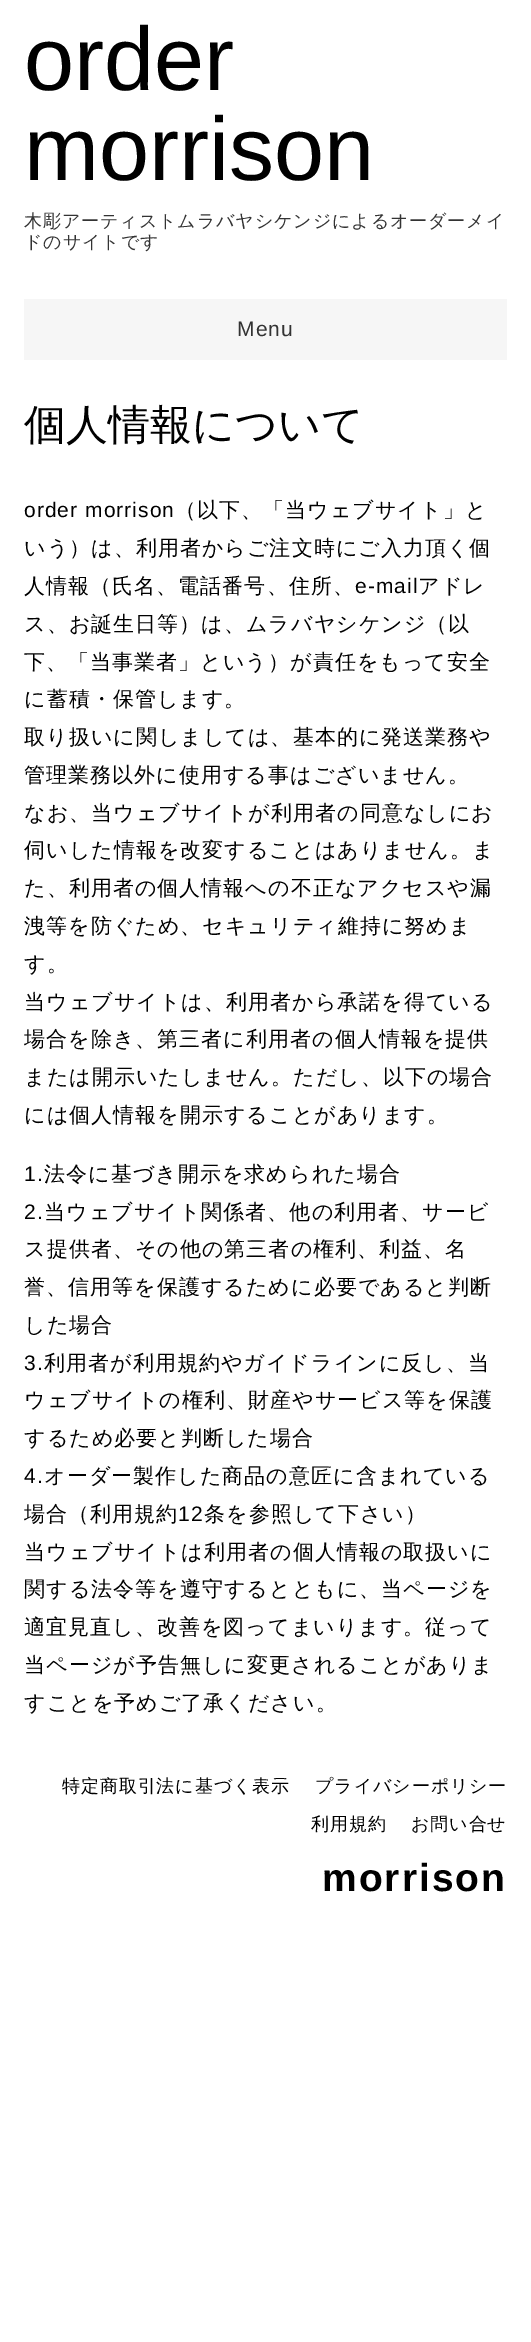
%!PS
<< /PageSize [531 2342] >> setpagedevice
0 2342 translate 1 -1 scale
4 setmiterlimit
1 setgray
0 0 531 2342 rectfill
/LiberationSans-Regular [90 0 0 -90 0 0] selectfont
0 setgray
24 90 moveto (order) show
24 180 moveto (morrison) show
/WenQuanYiZenHei-Medium [18 0 0 -18 0 0] selectfont
0.2 setgray
24 227 moveto 0.9 0 (木彫アーティストムラバヤシケンジによるオーダーメイ) ashow
24 248 moveto 0.9 0 (ドのサイトです) ashow
0.965 setgray
24 299 483 61 rectfill
/LiberationSans-Regular [21 0 0 -21 0 0] selectfont
0.2 setgray
237 336 moveto 1.05 0 (Menu) ashow
/WenQuanYiZenHei-Medium [42 0 0 -42 0 0] selectfont
0 setgray
24 439 moveto (個人情報について) show
/LiberationSans-Regular [21 0 0 -21 0 0] selectfont
24 517 moveto 1.05 0 (order morrison) ashow
/WenQuanYiZenHei-Medium [21 0 0 -21 0 0] selectfont
175 517 moveto 1.05 0 (（以下、「当ウェブサイト」と) ashow
24 555 moveto 1.05 0 (いう）は、利用者からご注文時にご入力頂く個) ashow
24 593 moveto 1.05 0 (人情報（氏名、電話番号、住所、) ashow
/LiberationSans-Regular [21 0 0 -21 0 0] selectfont
355 593 moveto 1.05 0 (e-mail) ashow
/WenQuanYiZenHei-Medium [21 0 0 -21 0 0] selectfont
418 593 moveto 1.05 0 (アドレ) ashow
24 631 moveto 1.05 0 (ス、お誕生日等）は、ムラバヤシケンジ（以) ashow
24 669 moveto 1.05 0 (下、「当事業者」という）が責任をもって安全) ashow
24 706 moveto 1.05 0 (に蓄積・保管します。) ashow
24 744 moveto 1.05 0 (取り扱いに関しましては、基本的に発送業務や) ashow
24 782 moveto 1.05 0 (管理業務以外に使用する事はございません。) ashow
24 820 moveto 1.05 0 (なお、当ウェブサイトが利用者の同意なしにお) ashow
24 857 moveto 1.05 0 (伺いした情報を改変することはありません。ま) ashow
24 895 moveto 1.05 0 (た、利用者の個人情報への不正なアクセスや漏) ashow
24 933 moveto 1.05 0 (洩等を防ぐため、セキュリティ維持に努めま) ashow
24 971 moveto 1.05 0 (す。) ashow
24 1009 moveto 1.05 0 (当ウェブサイトは、利用者から承諾を得ている) ashow
24 1046 moveto 1.05 0 (場合を除き、第三者に利用者の個人情報を提供) ashow
24 1084 moveto 1.05 0 (または開示いたしません。ただし、以下の場合) ashow
24 1122 moveto 1.05 0 (には個人情報を開示することがあります。) ashow
/LiberationSans-Regular [21 0 0 -21 0 0] selectfont
24 1181 moveto 1.05 0 (1.) ashow
/WenQuanYiZenHei-Medium [21 0 0 -21 0 0] selectfont
44 1181 moveto 1.05 0 (法令に基づき開示を求められた場合) ashow
/LiberationSans-Regular [21 0 0 -21 0 0] selectfont
24 1219 moveto 1.05 0 (2.) ashow
/WenQuanYiZenHei-Medium [21 0 0 -21 0 0] selectfont
44 1219 moveto 1.05 0 (当ウェブサイト関係者、他の利用者、サービ) ashow
24 1256 moveto 1.05 0 (ス提供者、その他の第三者の権利、利益、名) ashow
24 1294 moveto 1.05 0 (誉、信用等を保護するために必要であると判断) ashow
24 1332 moveto 1.05 0 (した場合) ashow
/LiberationSans-Regular [21 0 0 -21 0 0] selectfont
24 1370 moveto 1.05 0 (3.) ashow
/WenQuanYiZenHei-Medium [21 0 0 -21 0 0] selectfont
44 1370 moveto 1.05 0 (利用者が利用規約やガイドラインに反し、当) ashow
24 1407 moveto 1.05 0 (ウェブサイトの権利、財産やサービス等を保護) ashow
24 1445 moveto 1.05 0 (するため必要と判断した場合) ashow
/LiberationSans-Regular [21 0 0 -21 0 0] selectfont
24 1483 moveto 1.05 0 (4.) ashow
/WenQuanYiZenHei-Medium [21 0 0 -21 0 0] selectfont
44 1483 moveto 1.05 0 (オーダー製作した商品の意匠に含まれている) ashow
24 1521 moveto 1.05 0 (場合（利用規約) ashow
/LiberationSans-Regular [21 0 0 -21 0 0] selectfont
178 1521 moveto 1.05 0 (12) ashow
/WenQuanYiZenHei-Medium [21 0 0 -21 0 0] selectfont
204 1521 moveto 1.05 0 (条を参照して下さい）) ashow
24 1559 moveto 1.05 0 (当ウェブサイトは利用者の個人情報の取扱いに) ashow
24 1596 moveto 1.05 0 (関する法令等を遵守するとともに、当ページを) ashow
24 1634 moveto 1.05 0 (適宜見直し、改善を図ってまいります。従って) ashow
24 1672 moveto 1.05 0 (当ページが予告無しに変更されることがありま) ashow
24 1710 moveto 1.05 0 (すことを予めご了承ください。) ashow
/WenQuanYiZenHei-Medium [18 0 0 -18 0 0] selectfont
62 1792 moveto 0.9 0 (特定商取引法に基づく表示) ashow
315 1792 moveto 0.9 0 (プライバシーポリシー) ashow
311 1830 moveto 0.9 0 (利用規約) ashow
411 1830 moveto 0.9 0 (お問い合せ) ashow
/LiberationSans-Bold [39 0 0 -39 0 0] selectfont
322 1891 moveto 2 0 (morrison) ashow
showpage
